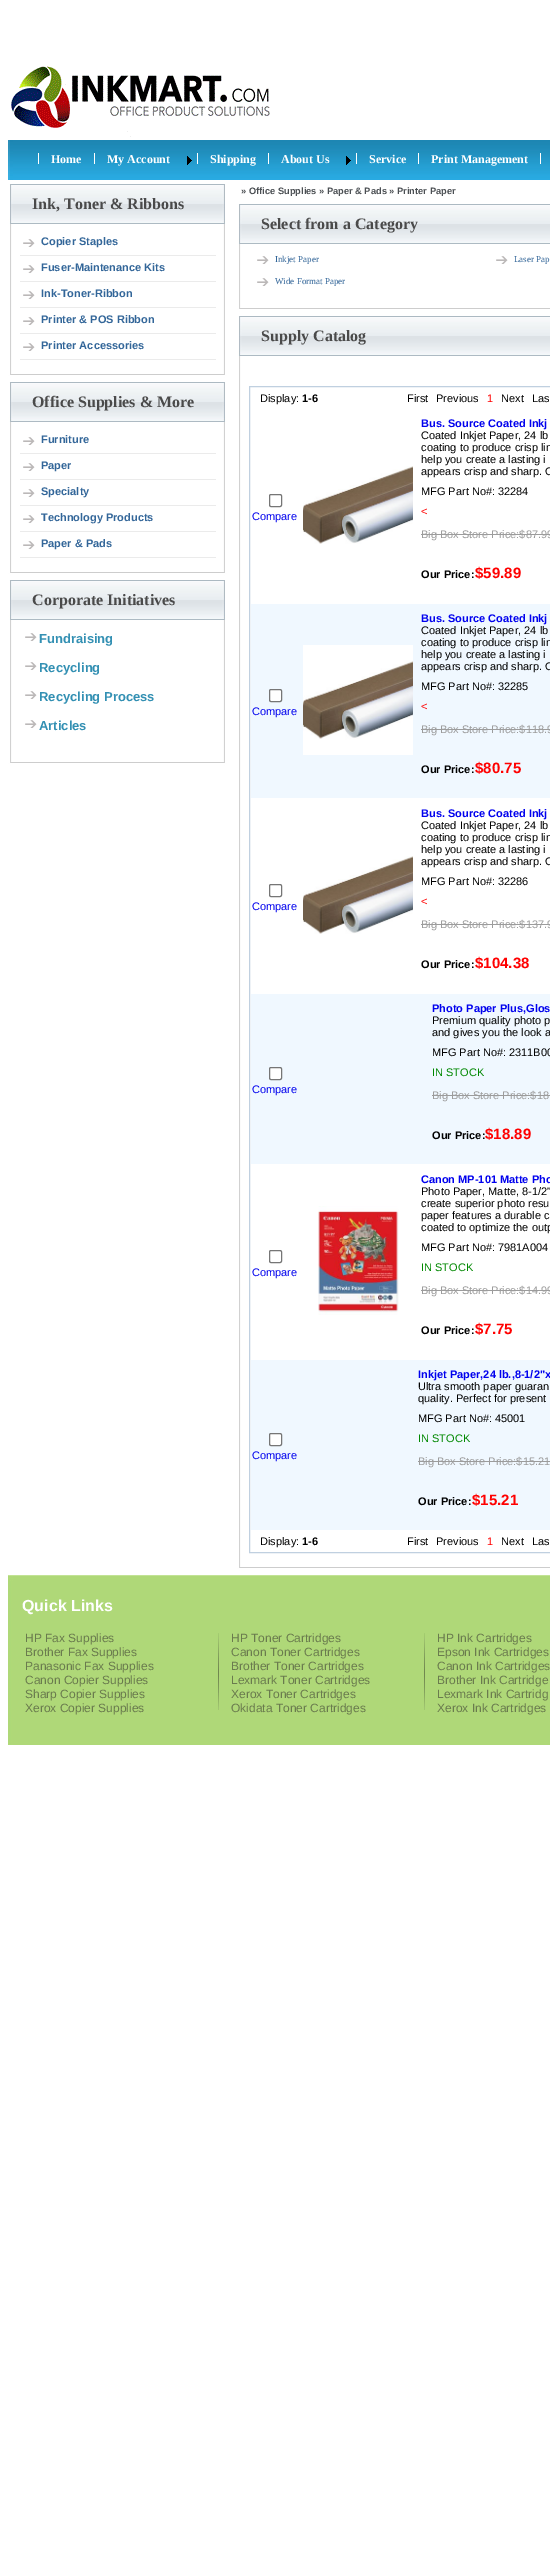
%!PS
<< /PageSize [550 2571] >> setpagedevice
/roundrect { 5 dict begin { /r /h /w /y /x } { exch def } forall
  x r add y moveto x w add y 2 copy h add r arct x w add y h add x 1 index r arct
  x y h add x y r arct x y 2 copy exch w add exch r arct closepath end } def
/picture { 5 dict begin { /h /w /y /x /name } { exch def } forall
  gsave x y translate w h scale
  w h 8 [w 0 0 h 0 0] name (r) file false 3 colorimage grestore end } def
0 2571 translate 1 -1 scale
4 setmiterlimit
1 setgray
0 0 550 2571 rectfill
(img1.rgb) 11 66 259 71 picture
(img2.rgb) 8 140 30 40 picture
(img3.rgb) 38 140 512 40 picture
1 0.996 0.996 setrgbcolor
38 153 1 11 rectfill
/LiberationSerif-Bold [12 0 0 -12 0 0] selectfont
1 setgray
51 163 moveto (Home) show
1 0.996 0.996 setrgbcolor
94 153 1 11 rectfill
1 setgray
107 163 moveto (My Account) show
(img4.rgb) 187 156 5 9 picture
1 0.996 0.996 setrgbcolor
197 153 1 11 rectfill
1 setgray
210 163 moveto (Shipping) show
1 0.996 0.996 setrgbcolor
268 153 1 11 rectfill
1 setgray
281 163 moveto (About Us) show
(img4.rgb) 346 156 5 9 picture
1 0.996 0.996 setrgbcolor
356 153 1 11 rectfill
1 setgray
369 163 moveto (Service) show
1 0.996 0.996 setrgbcolor
418 153 1 11 rectfill
1 setgray
431 163 moveto (Print Management) show
1 0.996 0.996 setrgbcolor
540 153 1 11 rectfill
(img5.rgb) 8 184 6 40 picture
(img6.rgb) 14 184 207 40 picture
/LiberationSerif-Bold [16 0 0 -16 0 0] selectfont
0.29 setgray
32 209 moveto (Ink, Toner & Ribbons) show
(img7.rgb) 221 184 6 40 picture
(img8.rgb) 8 224 6 142 picture
0.922 setgray
20 255 196 1 rectfill
(img9.rgb) 23 239 12 8 picture
/LiberationSans-Bold [11 0 0 -11 0 0] selectfont
0.2 0.4 0.6 setrgbcolor
41 245 moveto (Copier Staples) show
0.922 setgray
20 281 196 1 rectfill
(img9.rgb) 23 265 12 8 picture
0.2 0.4 0.6 setrgbcolor
41 271 moveto (Fuser-Maintenance Kits) show
0.922 setgray
20 307 196 1 rectfill
(img9.rgb) 23 291 12 8 picture
0.2 0.4 0.6 setrgbcolor
41 297 moveto (Ink-Toner-Ribbon) show
0.922 setgray
20 333 196 1 rectfill
(img9.rgb) 23 317 12 8 picture
0.2 0.4 0.6 setrgbcolor
41 323 moveto (Printer & POS Ribbon) show
0.922 setgray
20 359 196 1 rectfill
(img9.rgb) 23 343 12 8 picture
0.2 0.4 0.6 setrgbcolor
41 349 moveto (Printer Accessories) show
(img10.rgb) 221 224 6 142 picture
(img11.rgb) 8 366 6 12 picture
(img12.rgb) 14 366 207 12 picture
(img13.rgb) 221 366 6 12 picture
(img5.rgb) 8 382 6 40 picture
(img6.rgb) 14 382 207 40 picture
/LiberationSerif-Bold [16 0 0 -16 0 0] selectfont
0.29 setgray
32 407 moveto (Office Supplies & More) show
(img7.rgb) 221 382 6 40 picture
(img8.rgb) 8 422 6 142 picture
0.922 setgray
20 453 196 1 rectfill
(img9.rgb) 23 437 12 8 picture
/LiberationSans-Bold [11 0 0 -11 0 0] selectfont
0.2 0.4 0.6 setrgbcolor
41 443 moveto (Furniture) show
0.922 setgray
20 479 196 1 rectfill
(img9.rgb) 23 463 12 8 picture
0.2 0.4 0.6 setrgbcolor
41 469 moveto (Paper) show
0.922 setgray
20 505 196 1 rectfill
(img9.rgb) 23 489 12 8 picture
0.2 0.4 0.6 setrgbcolor
41 495 moveto (Specialty) show
0.922 setgray
20 531 196 1 rectfill
(img9.rgb) 23 515 12 8 picture
0.2 0.4 0.6 setrgbcolor
41 521 moveto (Technology Products) show
0.922 setgray
20 557 196 1 rectfill
(img9.rgb) 23 541 12 8 picture
0.2 0.4 0.6 setrgbcolor
41 547 moveto (Paper & Pads) show
(img10.rgb) 221 422 6 142 picture
(img11.rgb) 8 564 6 12 picture
(img12.rgb) 14 564 207 12 picture
(img13.rgb) 221 564 6 12 picture
(img5.rgb) 8 580 6 40 picture
(img6.rgb) 14 580 207 40 picture
/LiberationSerif-Bold [16 0 0 -16 0 0] selectfont
0.29 setgray
32 605 moveto (Corporate Initiatives) show
(img7.rgb) 221 580 6 40 picture
(img14.rgb) 8 620 6 134 picture
(img9.rgb) 25 633 12 8 picture
/LiberationSans-Bold [13 0 0 -13 0 0] selectfont
0.2 0.565 0.702 setrgbcolor
39 643 moveto (Fundraising) show
(img9.rgb) 25 662 12 8 picture
39 672 moveto (Recycling) show
(img9.rgb) 25 691 12 8 picture
39 701 moveto (Recycling Process) show
(img9.rgb) 25 720 12 8 picture
39 730 moveto (Articles) show
(img15.rgb) 221 620 6 134 picture
(img11.rgb) 8 754 6 12 picture
(img12.rgb) 14 754 207 12 picture
(img13.rgb) 221 754 6 12 picture
/LiberationSans-Bold [9.3 0 0 -9.3 0 0] selectfont
0.294 0.31 0.325 setrgbcolor
241 194 moveto (» Office Supplies » Paper & Pads » Printer Paper) show
(img5.rgb) 237 204 6 40 picture
(img16.rgb) 243 204 307 40 picture
/LiberationSerif-Bold [16 0 0 -16 0 0] selectfont
0.29 setgray
261 229 moveto (Select from a Category) show
(img17.rgb) 237 244 6 56 picture
(img9.rgb) 257 256 12 8 picture
/LiberationSerif-Regular [9 0 0 -9 0 0] selectfont
0.2 0.4 0.6 setrgbcolor
275 262 moveto (Inkjet Paper) show
(img9.rgb) 496 256 12 8 picture
514 262 moveto (Laser Pap) show
(img9.rgb) 257 278 12 8 picture
275 284 moveto (Wide Format Paper) show
(img11.rgb) 237 300 6 12 picture
(img18.rgb) 243 300 307 12 picture
(img5.rgb) 237 316 6 40 picture
(img16.rgb) 243 316 307 40 picture
/LiberationSerif-Bold [16 0 0 -16 0 0] selectfont
0.29 setgray
261 341 moveto (Supply Catalog) show
(img19.rgb) 237 356 6 1203 picture
0.753 0.816 0.878 setrgbcolor
249.5 386.5 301 1166 rectstroke
/LiberationSans-Regular [11 0 0 -11 0 0] selectfont
0 setgray
260 402 moveto (Display:) show
/LiberationSans-Bold [11 0 0 -11 0 0] selectfont
302 402 moveto (1-6) show
/LiberationSans-Regular [11 0 0 -11 0 0] selectfont
407 402 moveto (First) show
436 402 moveto (Previous) show
1 0 0 setrgbcolor
487 402 moveto (1) show
0 setgray
501 402 moveto (Next) show
532 402 moveto (Las) show
0.463 setgray
269.5 494.5 12 12 1.5 roundrect stroke
0 0 0.933 setrgbcolor
252 520 moveto (Compare) show
(img20.rgb) 303 466 110 78 picture
/LiberationSans-Bold [11 0 0 -11 0 0] selectfont
421 427 moveto (Bus. Source Coated Inkj) show
/LiberationSans-Regular [11 0 0 -11 0 0] selectfont
0 setgray
421 439 moveto (Coated Inkjet Paper, 24 lb) show
421 451 moveto (coating to produce crisp lin) show
421 463 moveto (help you create a lasting i) show
421 475 moveto (appears crisp and sharp. C) show
421 495 moveto (MFG Part No#: 32284) show
1 0 0 setrgbcolor
421 515 moveto (<) show
0.612 setgray
421 538 moveto (Big Box Store Price:$87.99) show
421 534 129 1 rectfill
/LiberationSans-Bold [11 0 0 -11 0 0] selectfont
0 setgray
421 578 moveto (Our Price:) show
/LiberationSans-Bold [15 0 0 -15 0 0] selectfont
1 0 0 setrgbcolor
475 578 moveto ($59.89) show
0.941 0.973 1 setrgbcolor
251 604 299 194 rectfill
1 setgray
269.5 689.5 12 12 1.5 roundrect gsave fill grestore
0.463 setgray
stroke
/LiberationSans-Regular [11 0 0 -11 0 0] selectfont
0 0 0.933 setrgbcolor
252 715 moveto (Compare) show
(img21.rgb) 303 645 110 110 picture
/LiberationSans-Bold [11 0 0 -11 0 0] selectfont
421 622 moveto (Bus. Source Coated Inkj) show
/LiberationSans-Regular [11 0 0 -11 0 0] selectfont
0 setgray
421 634 moveto (Coated Inkjet Paper, 24 lb) show
421 646 moveto (coating to produce crisp lin) show
421 658 moveto (help you create a lasting i) show
421 670 moveto (appears crisp and sharp. C) show
421 690 moveto (MFG Part No#: 32285) show
1 0 0 setrgbcolor
421 710 moveto (<) show
0.612 setgray
421 733 moveto (Big Box Store Price:$118.9) show
421 729 129 1 rectfill
/LiberationSans-Bold [11 0 0 -11 0 0] selectfont
0 setgray
421 773 moveto (Our Price:) show
/LiberationSans-Bold [15 0 0 -15 0 0] selectfont
1 0 0 setrgbcolor
475 773 moveto ($80.75) show
0.463 setgray
269.5 884.5 12 12 1.5 roundrect stroke
/LiberationSans-Regular [11 0 0 -11 0 0] selectfont
0 0 0.933 setrgbcolor
252 910 moveto (Compare) show
(img20.rgb) 303 856 110 78 picture
/LiberationSans-Bold [11 0 0 -11 0 0] selectfont
421 817 moveto (Bus. Source Coated Inkj) show
/LiberationSans-Regular [11 0 0 -11 0 0] selectfont
0 setgray
421 829 moveto (Coated Inkjet Paper, 24 lb) show
421 841 moveto (coating to produce crisp lin) show
421 853 moveto (help you create a lasting i) show
421 865 moveto (appears crisp and sharp. C) show
421 885 moveto (MFG Part No#: 32286) show
1 0 0 setrgbcolor
421 905 moveto (<) show
0.612 setgray
421 928 moveto (Big Box Store Price:$137.9) show
421 924 129 1 rectfill
/LiberationSans-Bold [11 0 0 -11 0 0] selectfont
0 setgray
421 968 moveto (Our Price:) show
/LiberationSans-Bold [15 0 0 -15 0 0] selectfont
1 0 0 setrgbcolor
475 968 moveto ($104.38) show
0.941 0.973 1 setrgbcolor
251 994 299 170 rectfill
1 setgray
269.5 1067.5 12 12 1.5 roundrect gsave fill grestore
0.463 setgray
stroke
/LiberationSans-Regular [11 0 0 -11 0 0] selectfont
0 0 0.933 setrgbcolor
252 1093 moveto (Compare) show
/LiberationSans-Bold [11 0 0 -11 0 0] selectfont
432 1012 moveto (Photo Paper Plus,Glos) show
/LiberationSans-Regular [11 0 0 -11 0 0] selectfont
0 setgray
432 1024 moveto (Premium quality photo p) show
432 1036 moveto (and gives you the look a) show
432 1056 moveto (MFG Part No#: 2311B00) show
0 0.533 0 setrgbcolor
432 1076 moveto (IN STOCK) show
0.612 setgray
432 1099 moveto (Big Box Store Price:$18.) show
432 1095 118 1 rectfill
/LiberationSans-Bold [11 0 0 -11 0 0] selectfont
0 setgray
432 1139 moveto (Our Price:) show
/LiberationSans-Bold [15 0 0 -15 0 0] selectfont
1 0 0 setrgbcolor
485 1139 moveto ($18.89) show
0.463 setgray
269.5 1250.5 12 12 1.5 roundrect stroke
/LiberationSans-Regular [11 0 0 -11 0 0] selectfont
0 0 0.933 setrgbcolor
252 1276 moveto (Compare) show
(img22.rgb) 318 1206 81 109 picture
/LiberationSans-Bold [11 0 0 -11 0 0] selectfont
421 1183 moveto (Canon MP-101 Matte Pho) show
/LiberationSans-Regular [11 0 0 -11 0 0] selectfont
0 setgray
421 1195 moveto (Photo Paper, Matte, 8-1/2") show
421 1207 moveto (create superior photo resu) show
421 1219 moveto (paper features a durable c) show
421 1231 moveto (coated to optimize the outp) show
421 1251 moveto (MFG Part No#: 7981A004) show
0 0.533 0 setrgbcolor
421 1271 moveto (IN STOCK) show
0.612 setgray
421 1294 moveto (Big Box Store Price:$14.99) show
421 1290 129 1 rectfill
/LiberationSans-Bold [11 0 0 -11 0 0] selectfont
0 setgray
421 1334 moveto (Our Price:) show
/LiberationSans-Bold [15 0 0 -15 0 0] selectfont
1 0 0 setrgbcolor
475 1334 moveto ($7.75) show
0.941 0.973 1 setrgbcolor
251 1360 299 170 rectfill
1 setgray
269.5 1433.5 12 12 1.5 roundrect gsave fill grestore
0.463 setgray
stroke
/LiberationSans-Regular [11 0 0 -11 0 0] selectfont
0 0 0.933 setrgbcolor
252 1459 moveto (Compare) show
/LiberationSans-Bold [11 0 0 -11 0 0] selectfont
418 1378 moveto (Inkjet Paper,24 lb.,8-1/2"x) show
/LiberationSans-Regular [11 0 0 -11 0 0] selectfont
0 setgray
418 1390 moveto (Ultra smooth paper guaran) show
418 1402 moveto (quality. Perfect for present) show
418 1422 moveto (MFG Part No#: 45001) show
0 0.533 0 setrgbcolor
418 1442 moveto (IN STOCK) show
0.612 setgray
418 1465 moveto (Big Box Store Price:$15.21) show
418 1461 132 1 rectfill
/LiberationSans-Bold [11 0 0 -11 0 0] selectfont
0 setgray
418 1505 moveto (Our Price:) show
/LiberationSans-Bold [15 0 0 -15 0 0] selectfont
1 0 0 setrgbcolor
472 1505 moveto ($15.21) show
/LiberationSans-Regular [11 0 0 -11 0 0] selectfont
0 setgray
260 1545 moveto (Display:) show
/LiberationSans-Bold [11 0 0 -11 0 0] selectfont
302 1545 moveto (1-6) show
/LiberationSans-Regular [11 0 0 -11 0 0] selectfont
407 1545 moveto (First) show
436 1545 moveto (Previous) show
1 0 0 setrgbcolor
487 1545 moveto (1) show
0 setgray
501 1545 moveto (Next) show
532 1545 moveto (Las) show
(img11.rgb) 237 1559 6 12 picture
(img18.rgb) 243 1559 307 12 picture
(img23.rgb) 8 1575 542 170 picture
/LiberationSans-Bold [16 0 0 -16 0 0] selectfont
1 setgray
22 1611 moveto (Quick Links) show
/LiberationSans-Regular [12 0 0 -12 0 0] selectfont
0.416 0.482 0.306 setrgbcolor
25 1642 moveto (HP Fax Supplies) show
25 1656 moveto (Brother Fax Supplies) show
25 1670 moveto (Panasonic Fax Supplies) show
25 1684 moveto (Canon Copier Supplies) show
25 1698 moveto (Sharp Copier Supplies) show
25 1712 moveto (Xerox Copier Supplies) show
(img24.rgb) 218 1633 1 77 picture
231 1642 moveto (HP Toner Cartridges) show
231 1656 moveto (Canon Toner Cartridges) show
231 1670 moveto (Brother Toner Cartridges) show
231 1684 moveto (Lexmark Toner Cartridges) show
231 1698 moveto (Xerox Toner Cartridges) show
231 1712 moveto (Okidata Toner Cartridges) show
(img24.rgb) 424 1633 1 77 picture
437 1642 moveto (HP Ink Cartridges) show
437 1656 moveto (Epson Ink Cartridges) show
437 1670 moveto (Canon Ink Cartridges) show
437 1684 moveto (Brother Ink Cartridge) show
437 1698 moveto (Lexmark Ink Cartridg) show
437 1712 moveto (Xerox Ink Cartridges) show
showpage
